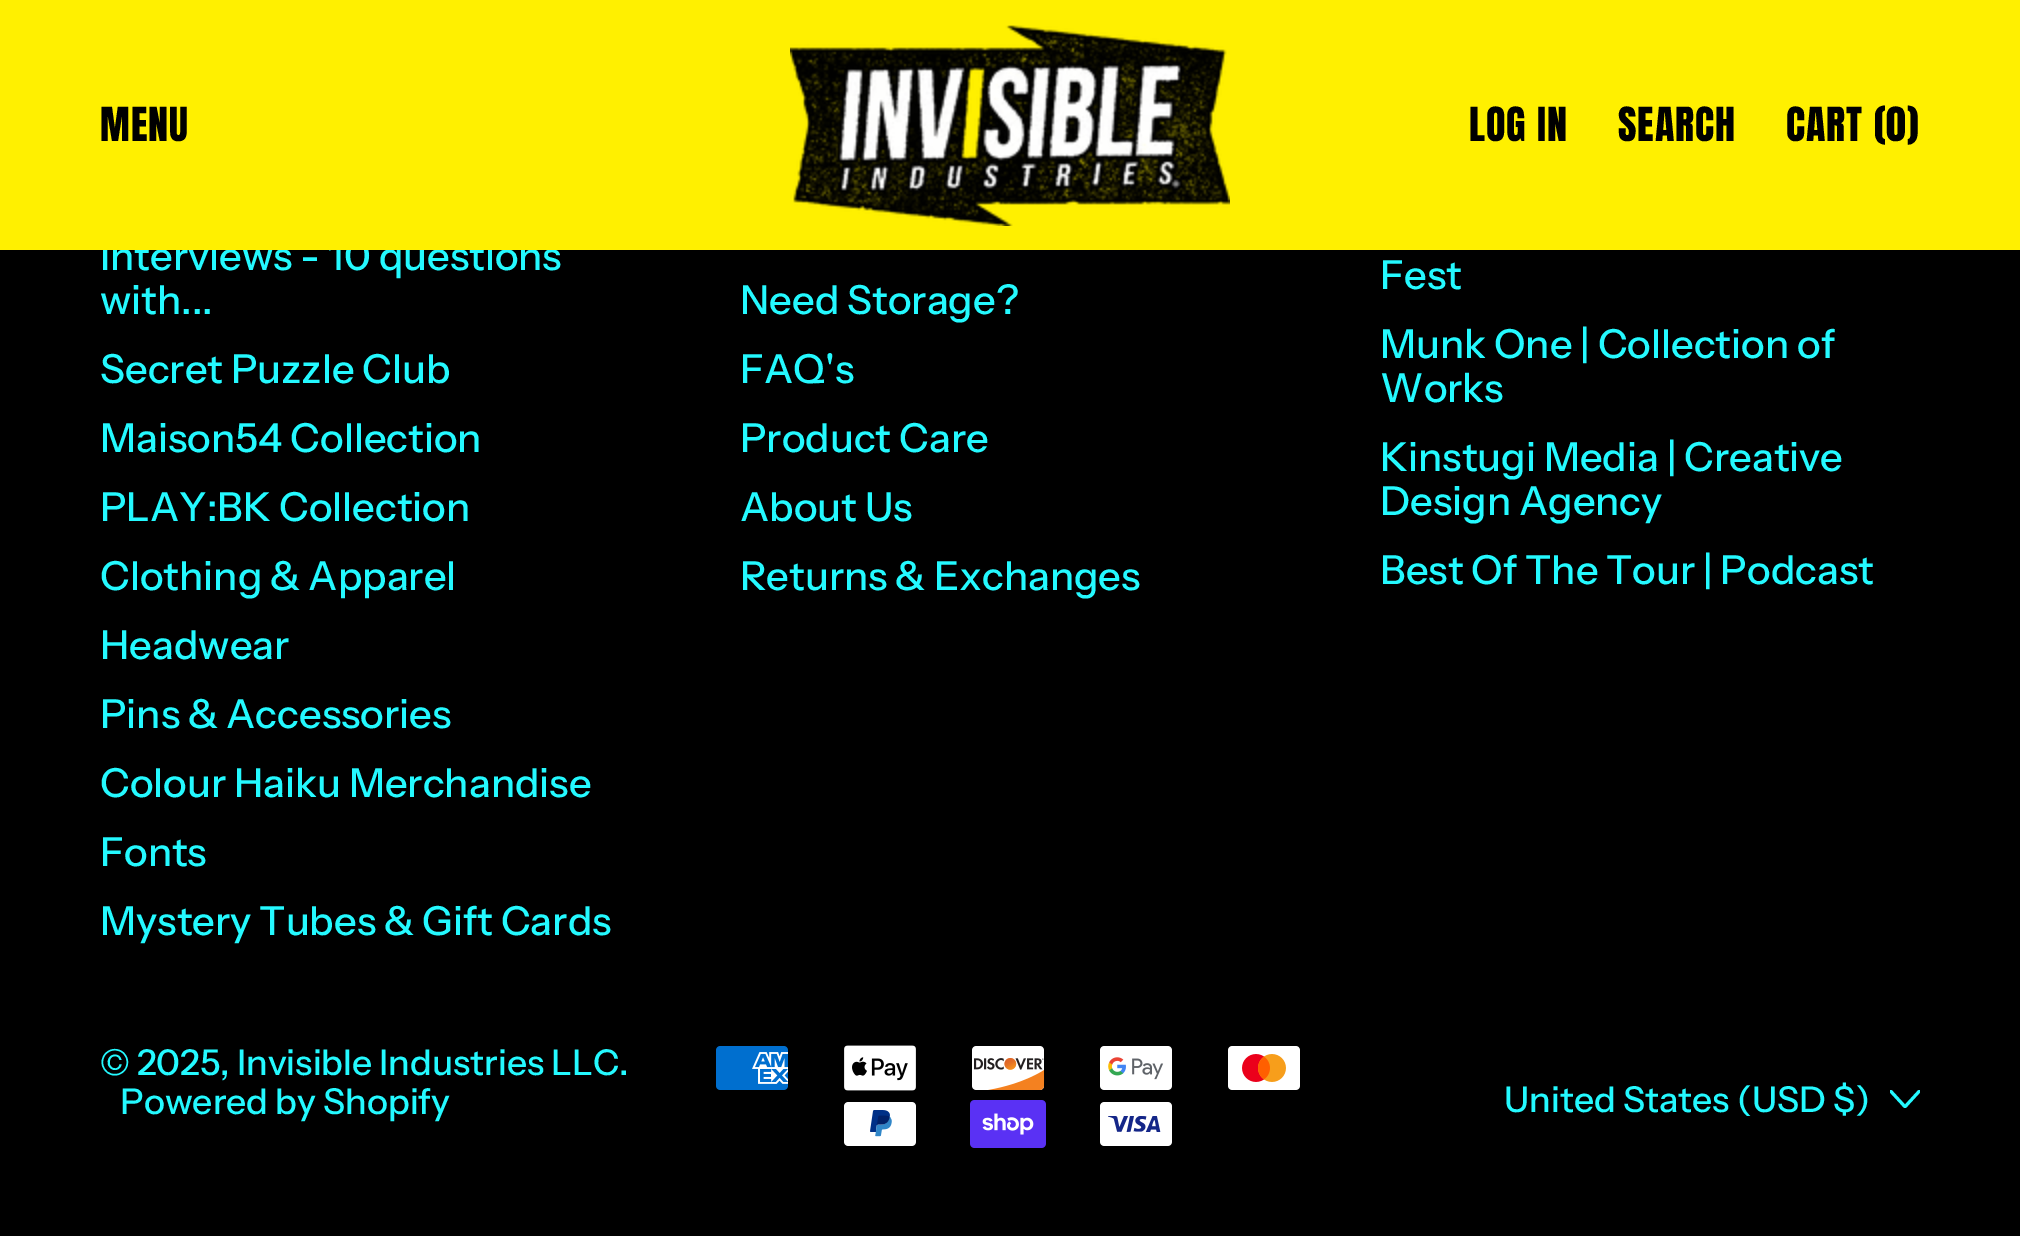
%!PS
<< /PageSize [2020 1236] >> setpagedevice
/picture { 5 dict begin { /h /w /y /x /name } { exch def } forall
  gsave x y translate w h scale
  w h 8 [w 0 0 h 0 0] name (r) file false 3 colorimage grestore end } def
0 1236 translate 1 -1 scale
4 setmiterlimit
0 setgray
0 0 2020 1236 rectfill
/InstrumentSans-Medium [40 0 0 -40 0 0] selectfont
0.141 0.976 1 setrgbcolor
100 270 moveto (Interviews - 10 questions) show
1 0.941 0 setrgbcolor
0 0 2020 250 rectfill
/Anton-Regular [40 0 0 -40 0 0] selectfont
0 setgray
100 141 moveto 1 0 (MENU) ashow
(img1.rgb) 790 25 440 201 picture
1469 141 moveto 1 0 (LOG IN) ashow
1618 141 moveto 1 0 (SEARCH) ashow
1786 141 moveto 1 0 (CART \(0\)) ashow
/InstrumentSans-Medium [40 0 0 -40 0 0] selectfont
0.141 0.976 1 setrgbcolor
100 314 moveto (with...) show
100 383 moveto (Secret Puzzle Club) show
100 452 moveto (Maison54 Collection) show
100 521 moveto (PLAY:BK Collection) show
100 590 moveto (Clothing & Apparel) show
100 659 moveto (Headwear) show
100 728 moveto (Pins & Accessories) show
100 797 moveto (Colour Haiku Merchandise) show
100 866 moveto (Fonts) show
100 935 moveto (Mystery Tubes & Gift Cards) show
740 314 moveto (Need Storage?) show
740 383 moveto (FAQ's) show
740 452 moveto (Product Care) show
740 521 moveto (About Us) show
740 590 moveto (Returns & Exchanges) show
1380 289 moveto (Fest) show
1380 358 moveto (Munk One | Collection of) show
1380 402 moveto (Works) show
1380 471 moveto (Kinstugi Media | Creative) show
1380 515 moveto (Design Agency) show
1380 584 moveto (Best Of The Tour | Podcast) show
/InstrumentSans-Medium [35.6 0 0 -35.6 0 0] selectfont
100 1075 moveto (© 2025, Invisible Industries LLC) show
619 1075 moveto (.) show
120 1114 moveto (Powered by Shopify) show
(img2.rgb) 716 1046 72 44 picture
(img3.rgb) 844 1045 72 46 picture
(img4.rgb) 972 1046 73 44 picture
(img5.rgb) 1100 1046 72 44 picture
(img6.rgb) 1228 1046 72 44 picture
(img7.rgb) 844 1102 72 44 picture
(img8.rgb) 970 1100 76 48 picture
(img9.rgb) 1100 1102 72 44 picture
1504 1112 moveto (United States \(USD) show
1833 1112 moveto ($\)) show
gsave
1890 1084 30 30 rectclip
3 setlinewidth
1 setlinecap
1 setlinejoin
newpath 1891 1091.5 moveto 1902.5 1104 lineto 1905.5 1107.5 1904.5 1107.5 1907.5 1104 curveto 1919 1091.5 lineto stroke
grestore
showpage
